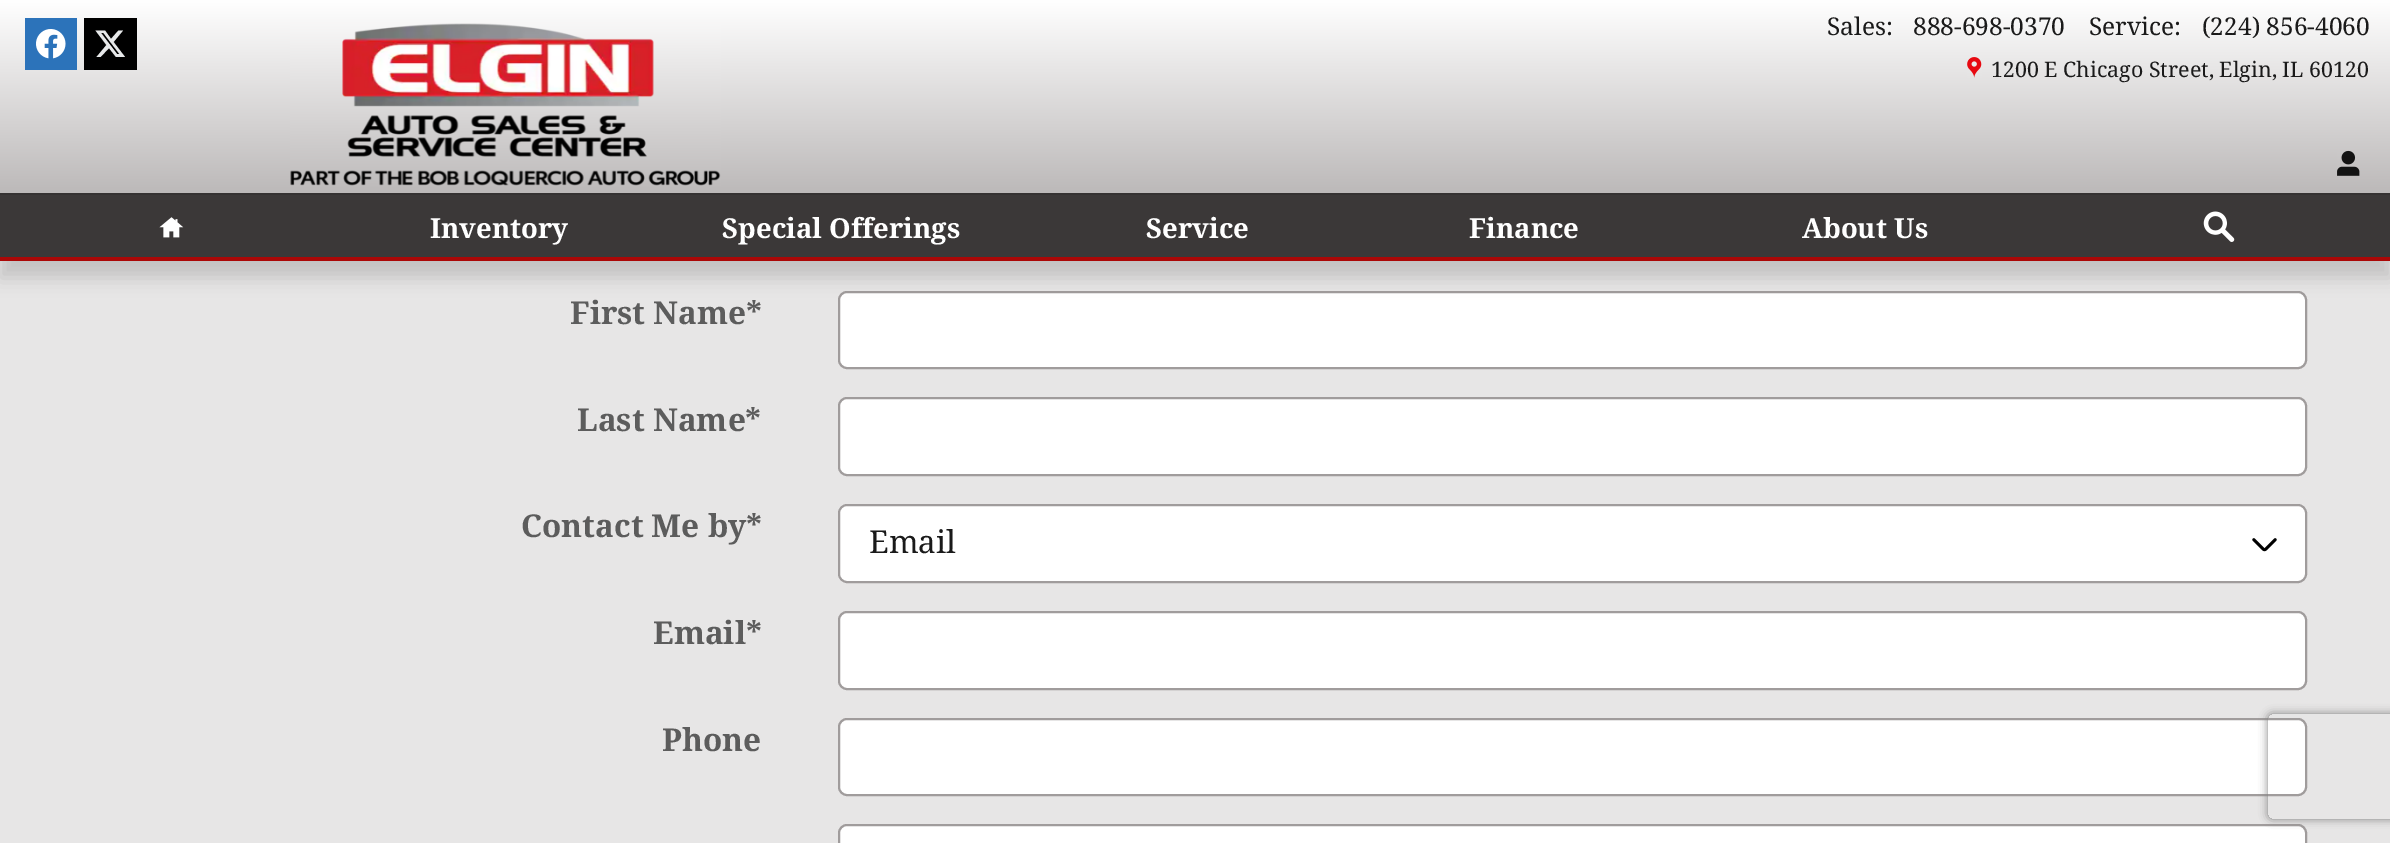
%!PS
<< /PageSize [2390 843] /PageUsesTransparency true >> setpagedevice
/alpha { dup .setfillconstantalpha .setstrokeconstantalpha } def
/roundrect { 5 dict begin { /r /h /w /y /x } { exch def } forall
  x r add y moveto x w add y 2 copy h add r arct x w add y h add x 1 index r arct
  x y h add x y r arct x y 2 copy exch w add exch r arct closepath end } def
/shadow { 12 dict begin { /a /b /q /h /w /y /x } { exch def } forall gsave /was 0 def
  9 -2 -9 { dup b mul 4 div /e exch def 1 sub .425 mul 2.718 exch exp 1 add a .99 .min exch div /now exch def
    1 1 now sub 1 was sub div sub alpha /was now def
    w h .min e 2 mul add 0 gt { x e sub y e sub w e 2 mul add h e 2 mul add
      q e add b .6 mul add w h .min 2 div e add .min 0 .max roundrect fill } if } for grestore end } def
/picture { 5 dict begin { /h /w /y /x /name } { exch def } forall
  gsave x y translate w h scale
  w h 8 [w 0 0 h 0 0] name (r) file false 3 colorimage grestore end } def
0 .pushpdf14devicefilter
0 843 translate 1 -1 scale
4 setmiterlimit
0.906 0.902 0.902 setrgbcolor
0 0 2390 843 rectfill
1 setgray
839 292 1467 76 8 roundrect gsave fill grestore
0.627 0.612 0.612 setrgbcolor
2 setlinewidth
stroke
0 setgray
0 210 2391 68 0 9 0.15 shadow
gsave newpath 0 0 moveto 2390 0 lineto 2390 193 lineto 0 193 lineto closepath clip newpath
<< /ShadingType 2 /ColorSpace /DeviceRGB /Coords [1195 0 1195 193] /Extend [true true] /Function << /FunctionType 2 /Domain [0 1] /C0 [1 1 1] /C1 [0.737 0.725 0.725] /N 1 >> >> shfill grestore
(img1.rgb) 25 18 52 52 picture
84 18 53 52 rectfill
0.906 0.914 0.918 setrgbcolor
newpath 118.5 30.5 moveto 123 30.5 lineto 113.5 42 lineto 125 57 lineto 116 57 lineto 109 48 lineto 100.5 57 lineto 96.5 57 lineto 106.5 45 lineto 95.5 30.5 lineto 105 30.5 lineto 111 39 lineto closepath 117 54 moveto 119.5 54 lineto 103.5 33 lineto 101 33 lineto closepath fill
(img2.rgb) 290 23 431 163 picture
/DroidSerif-Regular [24.5 0 0 -24.5 0 0] selectfont
0.102 setgray
1827 35 moveto (Sales:) show
1913 35 moveto (888-698-0370) show
2089 35 moveto (Service) show
2174 35 moveto (:) show
2202 35 moveto (\(224\) 856-4060) show
(img3.rgb) 1967 57 15 21 picture
/DroidSerif-Regular [21.4 0 0 -21.4 0 0] selectfont
1991 77 moveto (1200 E Chicago Street, Elgin, IL 60120) show
(img4.rgb) 2337 150 23 26 picture
0.231 0.22 0.22 setrgbcolor
0 195 2390 62 rectfill
0.671 0.031 0.027 setrgbcolor
0 257 2390 4 rectfill
0.208 0.196 0.196 setrgbcolor
0 193 2390 2 rectfill
(img5.rgb) 159 217 25 21 picture
/DroidSerif-Bold [27.5 0 0 -27.5 0 0] selectfont
1 setgray
430 238 moveto (Inventory) show
722 238 moveto (Special Offerings) show
1146 238 moveto (Service) show
1469 238 moveto (Finance) show
1802 238 moveto (About Us) show
(img6.rgb) 2203 211 32 31 picture
/DroidSerif-Bold [31.5 0 0 -31.5 0 0] selectfont
0.361 setgray
570 324 moveto (First Name*) show
577 431 moveto (Last Name*) show
1 setgray
839 398 1467 77 8 roundrect gsave fill grestore
0.627 0.612 0.612 setrgbcolor
stroke
0.361 setgray
521 537 moveto (Contact Me by*) show
1 setgray
838 504 1469 79 9 roundrect fill
(img7.rgb) 2252 538 25 14 picture
0.627 0.612 0.612 setrgbcolor
839 505 1467 77 8 roundrect stroke
/DroidSerif-Regular [31.5 0 0 -31.5 0 0] selectfont
0.102 setgray
869 553 moveto (Email) show
/DroidSerif-Bold [31.5 0 0 -31.5 0 0] selectfont
0.361 setgray
653 644 moveto (Email*) show
1 setgray
839 612 1467 77 8 roundrect gsave fill grestore
0.627 0.612 0.612 setrgbcolor
stroke
0.361 setgray
662 751 moveto (Phone) show
1 setgray
839 719 1467 76 8 roundrect gsave fill grestore
0.627 0.612 0.612 setrgbcolor
stroke
1 setgray
839 825 1467 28 8 roundrect gsave fill grestore
0.627 0.612 0.612 setrgbcolor
stroke
gsave
newpath 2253 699 moveto 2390 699 lineto 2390 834 lineto 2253 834 lineto closepath 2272 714 moveto 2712 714 lineto 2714 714 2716 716 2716 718 curveto 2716 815 lineto 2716 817 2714 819 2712 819 curveto 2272 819 lineto 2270 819 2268 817 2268 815 curveto 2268 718 lineto 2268 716 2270 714 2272 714 curveto closepath eoclip newpath
0.502 setgray
2268 714 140 105 4 4.5 1 shadow
grestore
.poppdf14devicefilter showpage
